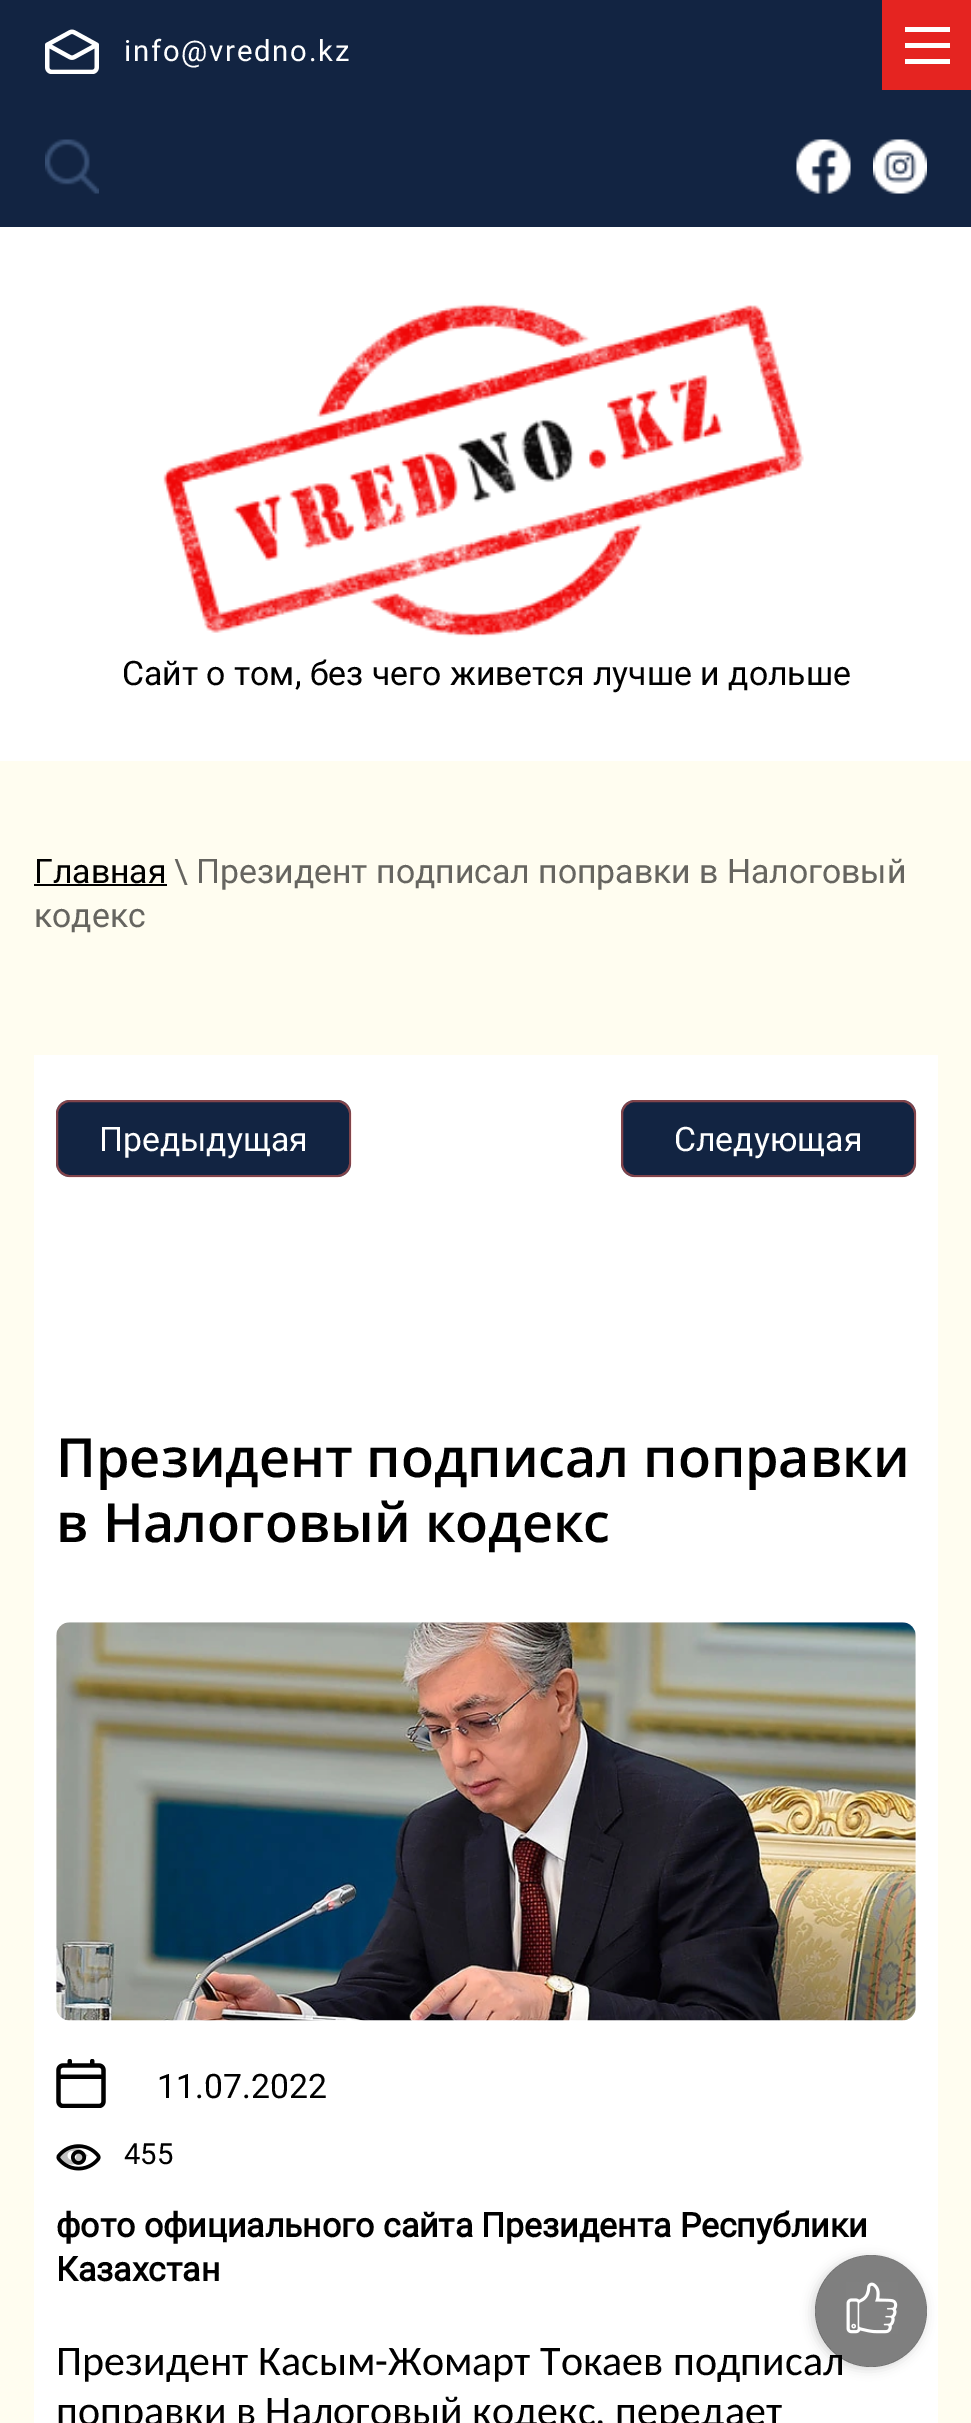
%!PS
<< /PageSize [971 2423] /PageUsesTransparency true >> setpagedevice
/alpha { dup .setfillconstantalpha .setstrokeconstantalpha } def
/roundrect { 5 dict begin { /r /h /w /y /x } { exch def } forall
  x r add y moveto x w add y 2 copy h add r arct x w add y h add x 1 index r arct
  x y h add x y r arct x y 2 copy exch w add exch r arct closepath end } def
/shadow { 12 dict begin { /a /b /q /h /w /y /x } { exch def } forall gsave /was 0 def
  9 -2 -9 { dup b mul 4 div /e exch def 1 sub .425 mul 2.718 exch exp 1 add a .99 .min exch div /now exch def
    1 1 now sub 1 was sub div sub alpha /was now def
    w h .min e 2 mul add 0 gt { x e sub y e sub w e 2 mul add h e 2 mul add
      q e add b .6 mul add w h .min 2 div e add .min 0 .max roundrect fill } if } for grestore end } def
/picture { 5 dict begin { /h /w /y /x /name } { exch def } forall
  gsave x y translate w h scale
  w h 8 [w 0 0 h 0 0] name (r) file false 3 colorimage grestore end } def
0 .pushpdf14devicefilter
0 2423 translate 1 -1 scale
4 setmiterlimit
1 0.992 0.941 setrgbcolor
0 0 971 2423 rectfill
0.071 0.141 0.259 setrgbcolor
0 0 971 227 rectfill
(img1.rgb) 45 29 54 45 picture
/Roboto-Regular [29.25 0 0 -29.25 0 0] selectfont
1 setgray
124 61 moveto 1.75 0 (info@vredno.kz) ashow
0.898 0.141 0.129 setrgbcolor
882 0 89 90 rectfill
1 setgray
905 27 45 5 rectfill
905 43 45 5 rectfill
905 59 45 5 rectfill
(img2.rgb) 45 139 54 55 picture
(img3.rgb) 796 139 55 55 picture
(img4.rgb) 873 139 54 55 picture
0 227 971 534 rectfill
(img5.rgb) 163 303 641 334 picture
/Roboto-Regular [33.75 0 0 -33.75 0 0] selectfont
0 setgray
122 685 moveto (Сайт о том, без чего живется лучше и дольше) show
34 883 moveto (Главная) show
34 884 133 2 rectfill
0.4 0.396 0.376 setrgbcolor
174 883 moveto (\\ Президент подписал поправки в Налоговый) show
34 927 moveto (кодекс) show
1 setgray
34 1055 904 1368 rectfill
0.071 0.141 0.259 setrgbcolor
56 1100 295 77 14 roundrect fill
0.5 alpha
0.941 0.388 0.329 setrgbcolor
2 setlinewidth
57 1101 293 75 13 roundrect stroke
1 alpha
1 setgray
99 1151 moveto (Предыдущая) show
0.071 0.141 0.259 setrgbcolor
621 1100 295 77 14 roundrect fill
0.5 alpha
0.941 0.388 0.329 setrgbcolor
622 1101 293 75 13 roundrect stroke
1 alpha
1 setgray
674 1151 moveto (Следующая) show
/OpenSans-SemiBold [54 0 0 -54 0 0] selectfont
0 setgray
56 1477 moveto (Президент подписал поправки) show
56 1542 moveto (в Налоговый кодекс) show
(img6.rgb) 56 1622 860 399 picture
(img7.rgb) 56 2059 50 49 picture
/Roboto-Regular [33.75 0 0 -33.75 0 0] selectfont
157 2098 moveto (11.07.2022) show
(img8.rgb) 56 2147 32 18 picture
(img9.rgb) 56 2144 45 27 picture
/Roboto-Regular [29.25 0 0 -29.25 0 0] selectfont
124 2164 moveto (455) show
/Roboto-Bold [33.75 0 0 -33.75 0 0] selectfont
56 2237 moveto (фото официального сайта Президента Республики) show
56 2281 moveto (Казахстан) show
/Carlito-Regular [42 0 0 -42 0 0] selectfont
56 2375 moveto (Президент Касым-Жомарт Токаев подписал) show
56 2425 moveto (поправки в Налоговый кодекс, передает) show
gsave
newpath 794 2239 moveto 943 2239 lineto 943 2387 lineto 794 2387 lineto closepath 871 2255 moveto 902 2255 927 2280 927 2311 curveto 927 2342 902 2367 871 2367 curveto 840 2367 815 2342 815 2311 curveto 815 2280 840 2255 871 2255 curveto closepath eoclip newpath
812 2257 113 112 56 5.5 0.15 shadow
grestore
0.5 alpha
newpath 871 2311 56 0 360 arc closepath fill
1 alpha
(img10.rgb) 846 2282 52 52 picture
.poppdf14devicefilter showpage
